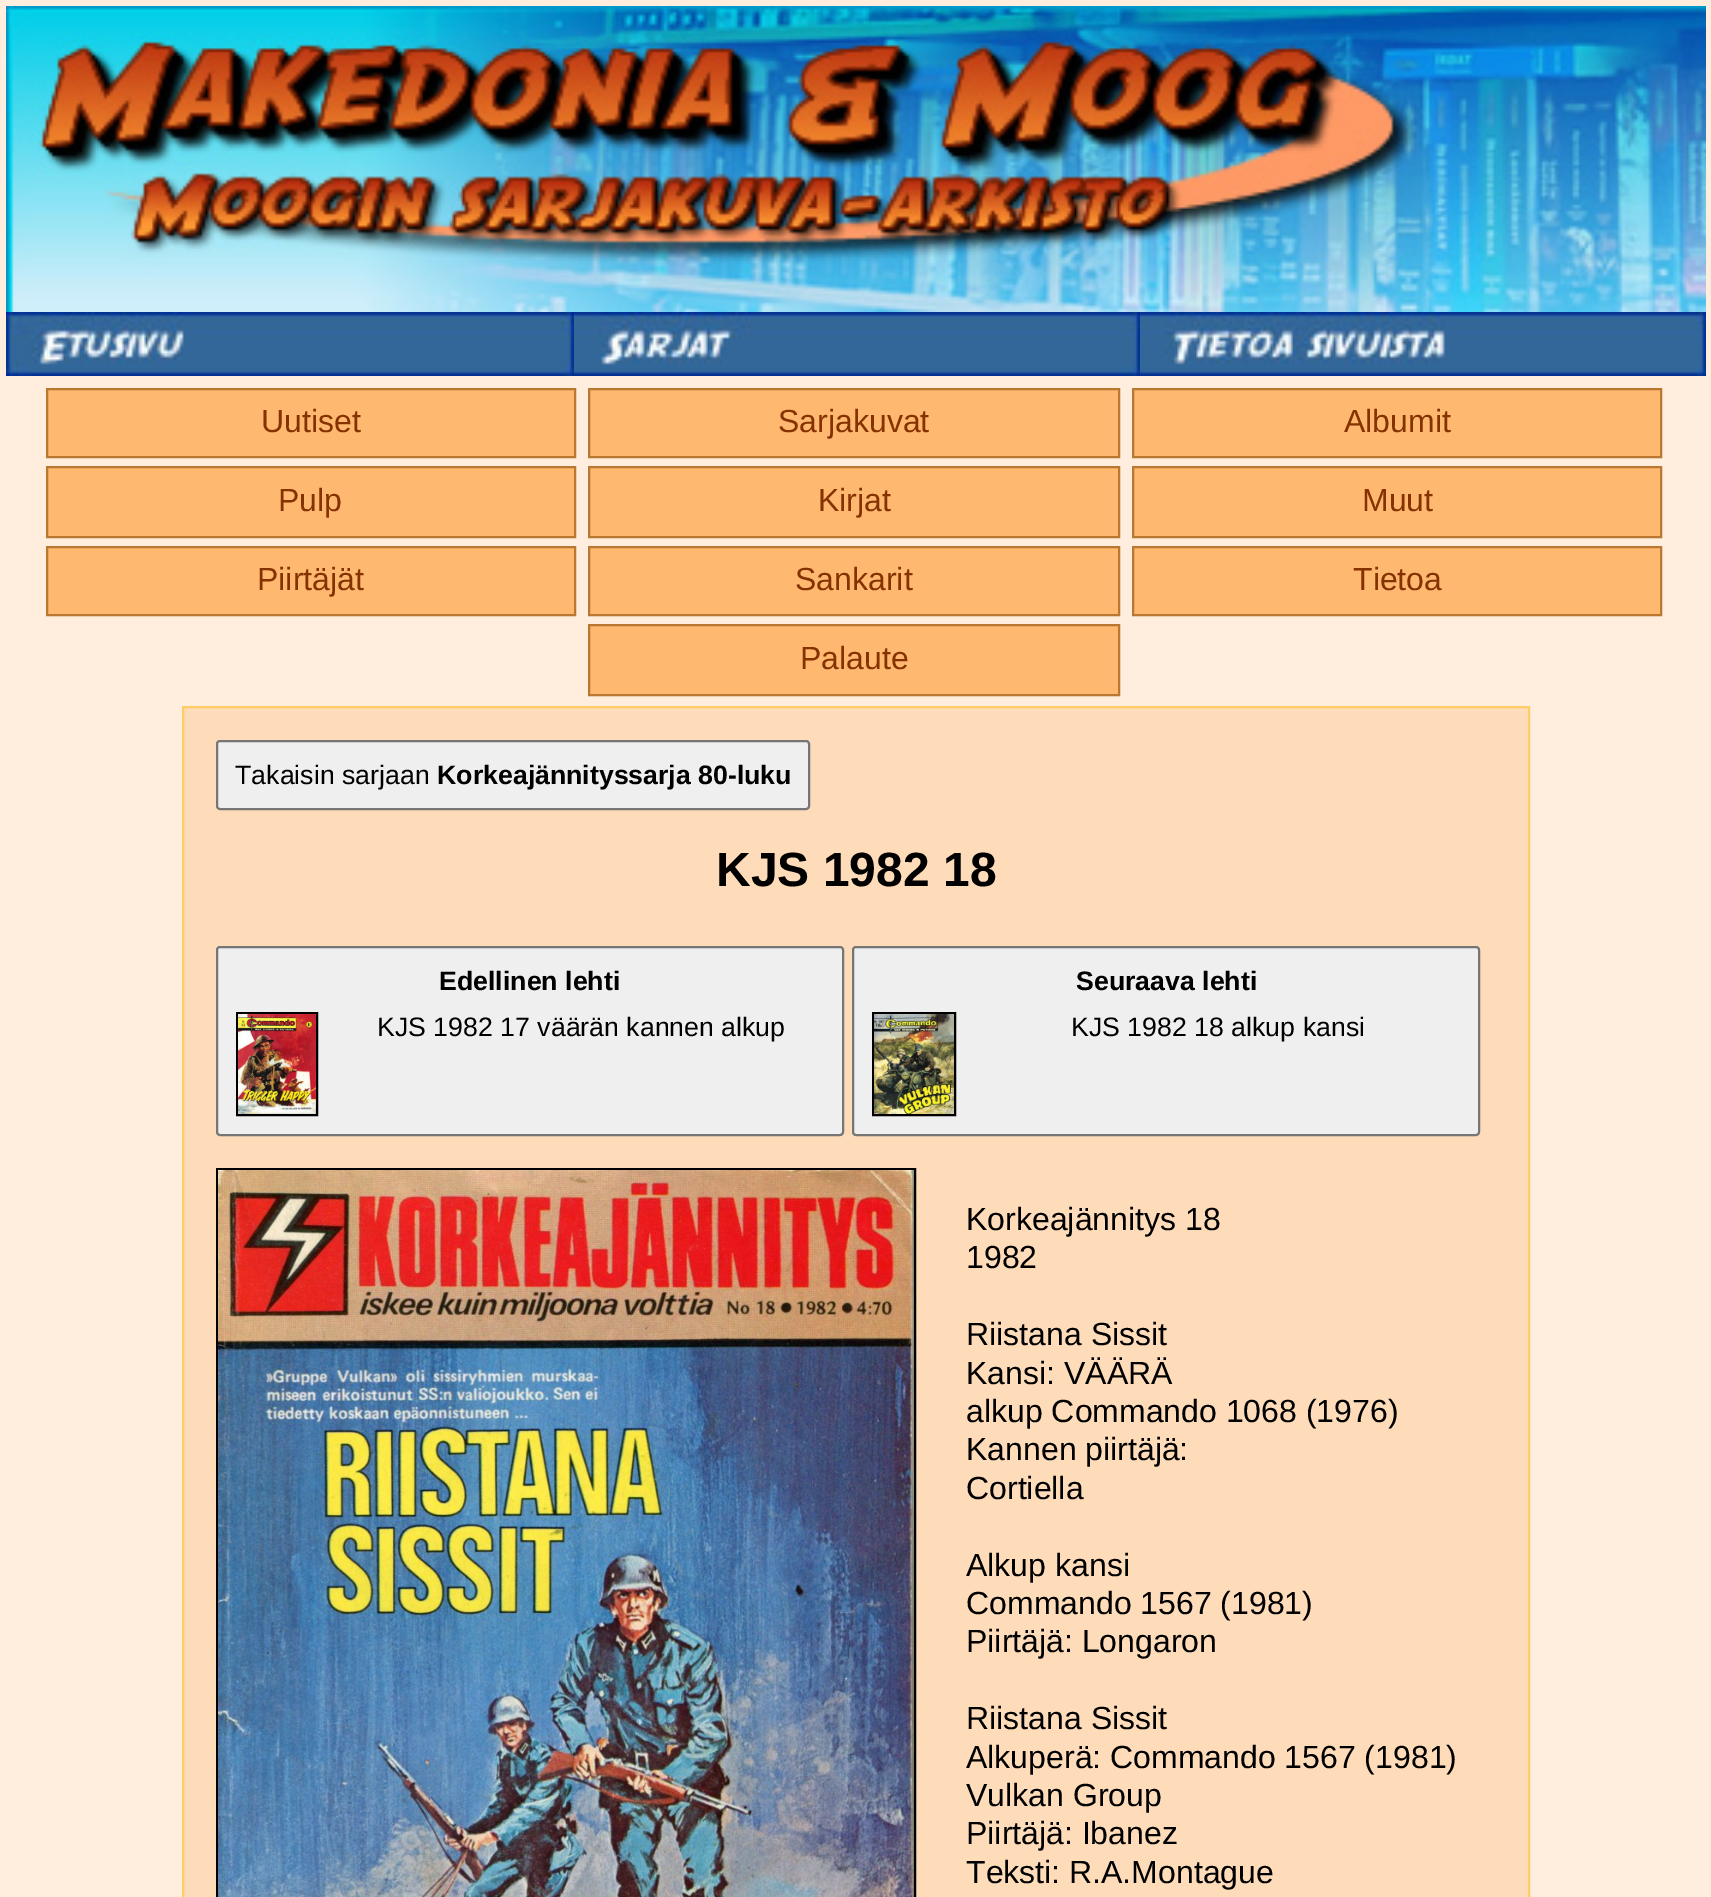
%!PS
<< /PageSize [1711 1897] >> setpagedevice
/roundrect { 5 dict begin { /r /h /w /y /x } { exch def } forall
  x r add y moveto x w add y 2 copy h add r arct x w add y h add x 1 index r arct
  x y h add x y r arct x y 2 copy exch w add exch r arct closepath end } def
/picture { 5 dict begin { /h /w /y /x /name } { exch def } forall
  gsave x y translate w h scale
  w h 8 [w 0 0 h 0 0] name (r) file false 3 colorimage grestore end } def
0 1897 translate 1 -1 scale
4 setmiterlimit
1 0.933 0.867 setrgbcolor
0 0 1711 1897 rectfill
(img1.rgb) 6 6 1700 306 picture
(img2.rgb) 6 312 568 64 picture
(img3.rgb) 574 312 566 64 picture
(img4.rgb) 1140 312 566 64 picture
0.996 0.722 0.439 setrgbcolor
newpath 47 389 moveto 575 389 lineto 575 457 lineto 47 457 lineto closepath gsave fill grestore
0.725 0.467 0.192 setrgbcolor
2 setlinewidth
stroke
/LiberationSans-Regular [32 0 0 -32 0 0] selectfont
0.525 0.196 0 setrgbcolor
261 432 moveto (Uutiset) show
0.996 0.722 0.439 setrgbcolor
newpath 589 389 moveto 1119 389 lineto 1119 457 lineto 589 457 lineto closepath gsave fill grestore
0.725 0.467 0.192 setrgbcolor
stroke
0.525 0.196 0 setrgbcolor
778 432 moveto (Sarjakuvat) show
0.996 0.722 0.439 setrgbcolor
newpath 1133 389 moveto 1661 389 lineto 1661 457 lineto 1133 457 lineto closepath gsave fill grestore
0.725 0.467 0.192 setrgbcolor
stroke
0.525 0.196 0 setrgbcolor
1344 432 moveto (Albumit) show
0.996 0.722 0.439 setrgbcolor
newpath 47 467 moveto 575 467 lineto 575 537 lineto 47 537 lineto closepath gsave fill grestore
0.725 0.467 0.192 setrgbcolor
stroke
0.525 0.196 0 setrgbcolor
278 511 moveto (Pulp) show
0.996 0.722 0.439 setrgbcolor
newpath 589 467 moveto 1119 467 lineto 1119 537 lineto 589 537 lineto closepath gsave fill grestore
0.725 0.467 0.192 setrgbcolor
stroke
0.525 0.196 0 setrgbcolor
818 511 moveto (Kirjat) show
0.996 0.722 0.439 setrgbcolor
newpath 1133 467 moveto 1661 467 lineto 1661 537 lineto 1133 537 lineto closepath gsave fill grestore
0.725 0.467 0.192 setrgbcolor
stroke
0.525 0.196 0 setrgbcolor
1362 511 moveto (Muut) show
0.996 0.722 0.439 setrgbcolor
newpath 47 547 moveto 575 547 lineto 575 615 lineto 47 615 lineto closepath gsave fill grestore
0.725 0.467 0.192 setrgbcolor
stroke
0.525 0.196 0 setrgbcolor
257 590 moveto (Piirtäjät) show
0.996 0.722 0.439 setrgbcolor
newpath 589 547 moveto 1119 547 lineto 1119 615 lineto 589 615 lineto closepath gsave fill grestore
0.725 0.467 0.192 setrgbcolor
stroke
0.525 0.196 0 setrgbcolor
795 590 moveto (Sankarit) show
0.996 0.722 0.439 setrgbcolor
newpath 1133 547 moveto 1661 547 lineto 1661 615 lineto 1133 615 lineto closepath gsave fill grestore
0.725 0.467 0.192 setrgbcolor
stroke
0.525 0.196 0 setrgbcolor
1353 590 moveto (Tietoa) show
0.996 0.722 0.439 setrgbcolor
newpath 589 625 moveto 1119 625 lineto 1119 695 lineto 589 695 lineto closepath gsave fill grestore
0.725 0.467 0.192 setrgbcolor
stroke
0.525 0.196 0 setrgbcolor
800 669 moveto (Palaute) show
1 0.863 0.725 setrgbcolor
newpath 183 707 moveto 1529 707 lineto 1529 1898 lineto 183 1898 lineto closepath gsave fill grestore
1 0.8 0.4 setrgbcolor
stroke
0.937 setgray
217 741 592 68 3 roundrect gsave fill grestore
0.463 setgray
stroke
/LiberationSans-Regular [26.7 0 0 -26.7 0 0] selectfont
0 setgray
235 784 moveto (Takaisin sarjaan) show
/LiberationSans-Bold [26.7 0 0 -26.7 0 0] selectfont
437 784 moveto (Korkeajännityssarja 80-luku) show
/LiberationSans-Bold [48 0 0 -48 0 0] selectfont
716 886 moveto (KJS 1982 18) show
0.937 setgray
217 947 626 188 3 roundrect gsave fill grestore
0.463 setgray
stroke
/LiberationSans-Bold [26.7 0 0 -26.7 0 0] selectfont
0 setgray
439 990 moveto (Edellinen lehti) show
237 1013 80 102 rectstroke
(img5.rgb) 238 1014 78 100 picture
/LiberationSans-Regular [26.7 0 0 -26.7 0 0] selectfont
377 1036 moveto (KJS 1982 17 väärän kannen alkup) show
0.937 setgray
853 947 626 188 3 roundrect gsave fill grestore
0.463 setgray
stroke
/LiberationSans-Bold [26.7 0 0 -26.7 0 0] selectfont
0 setgray
1076 990 moveto (Seuraava lehti) show
873 1013 82 102 rectstroke
(img6.rgb) 874 1014 80 100 picture
/LiberationSans-Regular [26.7 0 0 -26.7 0 0] selectfont
1071 1036 moveto (KJS 1982 18 alkup kansi) show
217 1169 698 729 rectstroke
(img7.rgb) 218 1170 696 727 picture
/LiberationSans-Regular [32 0 0 -32 0 0] selectfont
966 1230 moveto (Korkeajännitys 18) show
966 1268 moveto (1982) show
966 1345 moveto (Riistana Sissit) show
966 1384 moveto (Kansi: VÄÄRÄ) show
966 1422 moveto (alkup Commando 1068 \(1976\)) show
966 1460 moveto (Kannen piirtäjä:) show
966 1499 moveto (Cortiella) show
966 1576 moveto (Alkup kansi) show
966 1614 moveto (Commando 1567 \(1981\)) show
966 1652 moveto (Piirtäjä: Longaron) show
966 1729 moveto (Riistana Sissit) show
966 1768 moveto (Alkuperä: Commando 1567 \(1981\)) show
966 1806 moveto (Vulkan Group) show
966 1844 moveto (Piirtäjä: Ibanez) show
966 1883 moveto (Teksti: R.A.Montague) show
showpage
